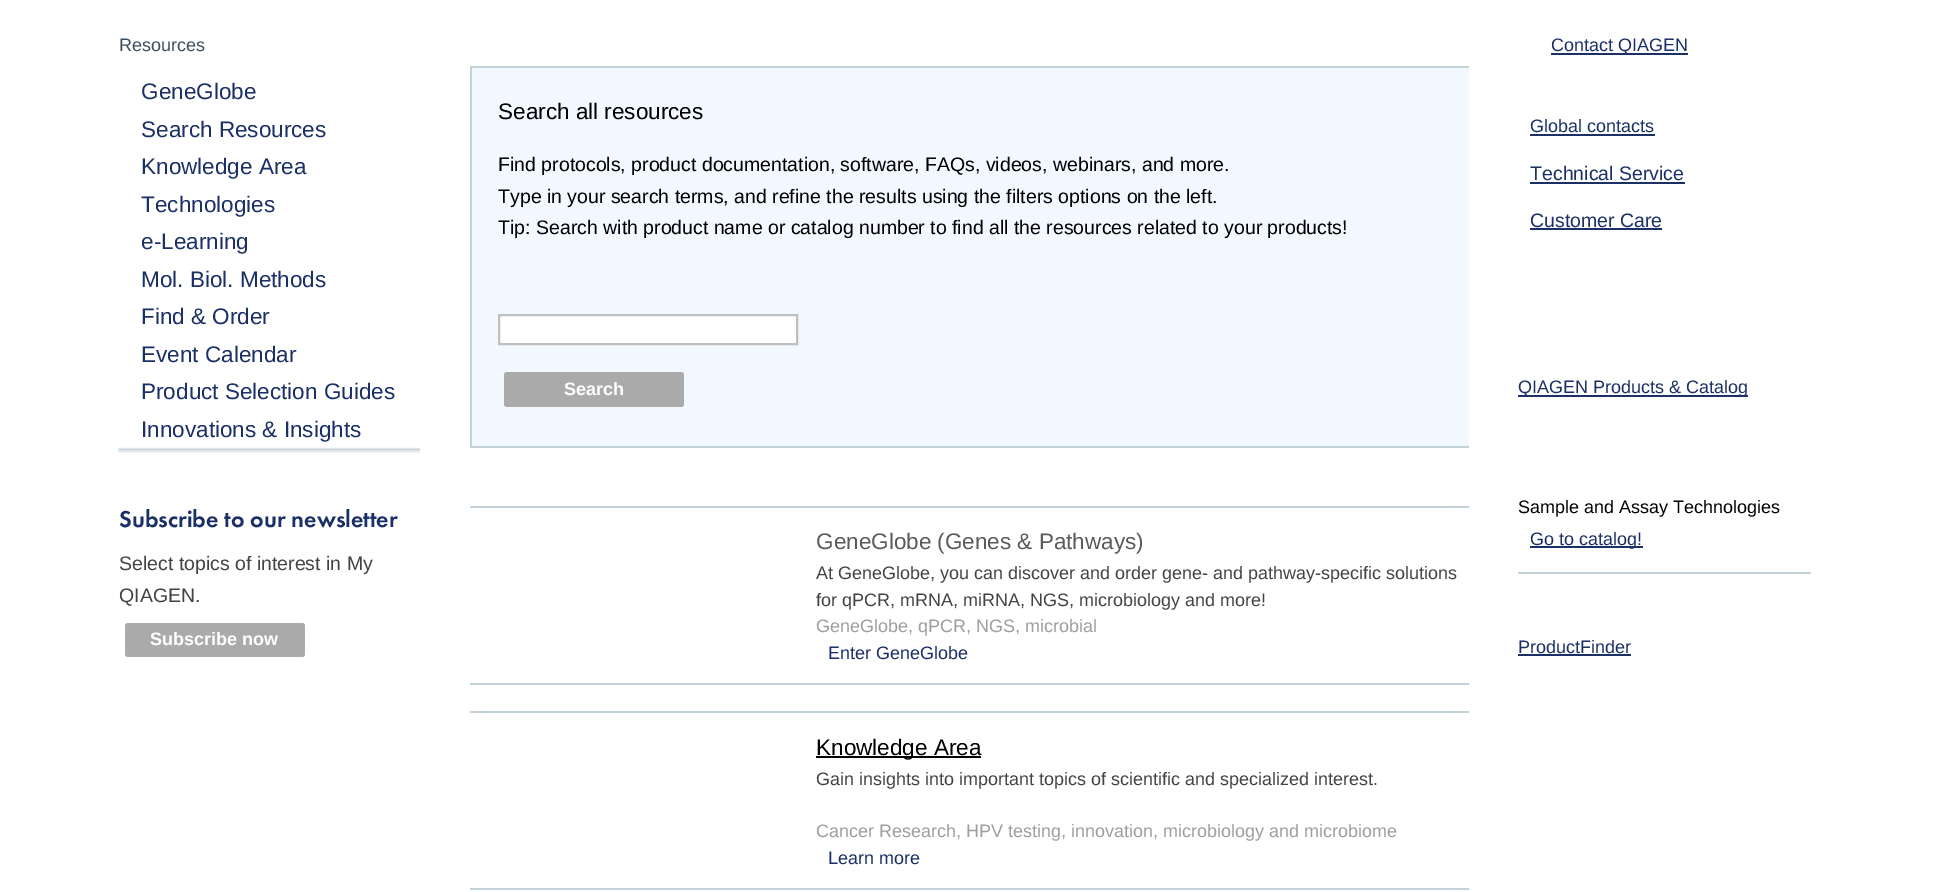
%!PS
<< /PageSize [1937 892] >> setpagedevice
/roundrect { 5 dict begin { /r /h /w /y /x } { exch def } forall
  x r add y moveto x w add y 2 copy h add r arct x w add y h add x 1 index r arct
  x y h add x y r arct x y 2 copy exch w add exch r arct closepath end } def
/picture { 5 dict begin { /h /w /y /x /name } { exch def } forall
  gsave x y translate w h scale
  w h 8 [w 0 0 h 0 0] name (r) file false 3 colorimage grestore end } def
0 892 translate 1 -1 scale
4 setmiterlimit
1 setgray
0 0 1937 892 rectfill
/LiberationSans-Regular [18 0 0 -18 0 0] selectfont
0.235 0.314 0.38 setrgbcolor
119 51 moveto (Resources) show
(img1.rgb) 118 447 302 6 picture
/LiberationSans-Regular [22.5 0 0 -22.5 0 0] selectfont
0.106 0.188 0.404 setrgbcolor
141 99 moveto (GeneGlobe) show
141 137 moveto (Search Resources) show
141 174 moveto (Knowledge Area) show
141 212 moveto (Technologies) show
141 249 moveto (e-Learning) show
141 287 moveto (Mol. Biol. Methods) show
141 324 moveto (Find & Order) show
141 362 moveto (Event Calendar) show
141 399 moveto (Product Selection Guides) show
141 437 moveto (Innovations & Insights) show
/futura-Light [24 0 0 -24 0 0] selectfont
119 527 moveto (Subscribe to our newsletter) show
/LiberationSans-Regular [19.5 0 0 -19.5 0 0] selectfont
0.267 setgray
119 570 moveto (Select topics of interest in My) show
119 602 moveto (QIAGEN.) show
0.667 setgray
125 623 180 34 3 roundrect fill
/LiberationSans-Bold [18 0 0 -18 0 0] selectfont
1 setgray
150 645 moveto (Subscribe now) show
0.949 0.973 1 setrgbcolor
472 68 997 378 rectfill
0.765 0.82 0.851 setrgbcolor
470 66 999 2 rectfill
470 446 999 2 rectfill
470 66 2 381 rectfill
/LiberationSans-Regular [22.5 0 0 -22.5 0 0] selectfont
0 setgray
498 119 moveto (Search all resources) show
/LiberationSans-Regular [19.5 0 0 -19.5 0 0] selectfont
498 171 moveto (Find protocols, product documentation, software, FAQs, videos, webinars, and more.) show
498 203 moveto (Type in your search terms, and refine the results using the filters options on the left.) show
498 234 moveto (Tip: Search with product name or catalog number to find all the resources related to your products!) show
1 setgray
newpath 499 315 moveto 797 315 lineto 797 344 lineto 499 344 lineto closepath gsave fill grestore
0.749 setgray
2 setlinewidth
stroke
0.667 setgray
504 372 180 35 3 roundrect fill
/LiberationSans-Bold [18 0 0 -18 0 0] selectfont
1 setgray
564 395 moveto (Search) show
0.765 0.82 0.851 setrgbcolor
470 506 999 2 rectfill
470 683 999 2 rectfill
/LiberationSans-Regular [22.5 0 0 -22.5 0 0] selectfont
0.357 0.357 0.353 setrgbcolor
816 549 moveto (GeneGlobe \(Genes & Pathways\)) show
/LiberationSans-Regular [18 0 0 -18 0 0] selectfont
0.267 setgray
816 579 moveto (At GeneGlobe, you can discover and order gene- and pathway-specific solutions) show
816 606 moveto (for qPCR, mRNA, miRNA, NGS, microbiology and more!) show
0.62 setgray
816 632 moveto (GeneGlobe, qPCR, NGS, microbial) show
0.106 0.188 0.404 setrgbcolor
828 659 moveto (Enter GeneGlobe) show
0.765 0.82 0.851 setrgbcolor
470 711 999 2 rectfill
470 888 999 2 rectfill
0 setgray
816 756 165 2 rectfill
/LiberationSans-Regular [22.5 0 0 -22.5 0 0] selectfont
816 755 moveto (Knowledge Area) show
/LiberationSans-Regular [18 0 0 -18 0 0] selectfont
0.267 setgray
816 785 moveto (Gain insights into important topics of scientific and specialized interest.) show
0.62 setgray
816 837 moveto (Cancer Research, HPV testing, innovation, microbiology and microbiome) show
0.106 0.188 0.404 setrgbcolor
828 864 moveto (Learn more) show
1551 53 137 2 rectfill
1551 51 moveto (Contact QIAGEN) show
1530 132 moveto (Global contacts) show
1530 134 125 2 rectfill
/LiberationSans-Regular [19.5 0 0 -19.5 0 0] selectfont
1530 180 moveto (Technical Service) show
1530 182 155 2 rectfill
1530 227 moveto (Customer Care) show
1530 228 132 2 rectfill
1518 395 230 2 rectfill
/LiberationSans-Regular [18 0 0 -18 0 0] selectfont
1518 393 moveto (QIAGEN Products & Catalog) show
0 setgray
1518 513 moveto (Sample and Assay Technologies) show
0.765 0.82 0.851 setrgbcolor
1518 572 293 2 rectfill
0.106 0.188 0.404 setrgbcolor
1530 546 113 2 rectfill
1530 545 moveto (Go to catalog!) show
1518 653 moveto (ProductFinder) show
1518 654 113 2 rectfill
showpage
